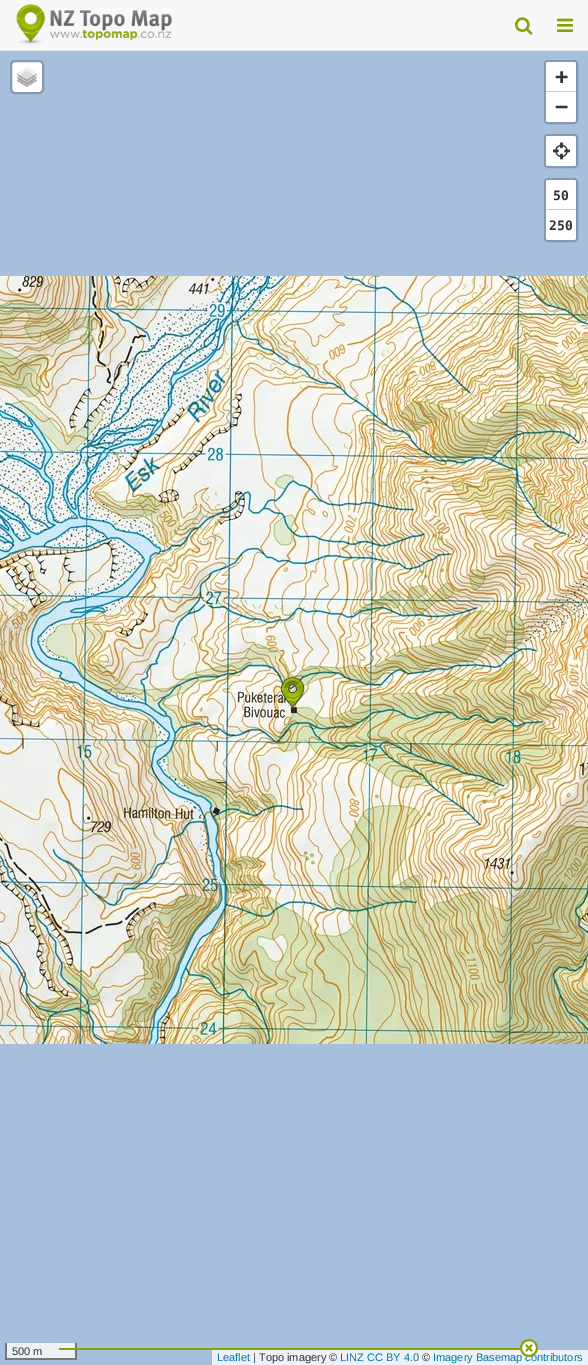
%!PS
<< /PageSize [588 1365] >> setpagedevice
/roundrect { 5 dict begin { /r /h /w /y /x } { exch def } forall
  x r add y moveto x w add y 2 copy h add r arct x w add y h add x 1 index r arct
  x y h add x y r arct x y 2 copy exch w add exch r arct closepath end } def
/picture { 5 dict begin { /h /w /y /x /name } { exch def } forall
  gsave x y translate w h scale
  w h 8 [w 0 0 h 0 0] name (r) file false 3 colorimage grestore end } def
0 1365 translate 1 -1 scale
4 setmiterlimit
0.647 0.749 0.867 setrgbcolor
0 0 588 1365 rectfill
0.973 setgray
0 0 588 50 rectfill
0.906 setgray
0 50 588 1 rectfill
(img1.rgb) 16 4 156 40 picture
(img2.rgb) 515 17 18 18 picture
(img3.rgb) 557 18 16 14 picture
1 setgray
11 61 32 32 4 roundrect gsave fill grestore
0.518 0.6 0.694 setrgbcolor
2 setlinewidth
stroke
(img4.rgb) 17 67 20 20 picture
545 61 32 62 3 roundrect stroke
1 setgray
newpath 548 62 moveto 574 62 lineto 575 62 576 63 576 64 curveto 576 92 lineto 546 92 lineto 546 64 lineto 546 63 547 62 548 62 curveto closepath fill
0.8 setgray
546 91 30 1 rectfill
/DejaVuSansMono-Bold [22 0 0 -22 0 0] selectfont
0.2 setgray
555 84 moveto (+) show
1 setgray
newpath 546 92 moveto 576 92 lineto 576 120 lineto 576 121 575 122 574 122 curveto 548 122 lineto 547 122 546 121 546 120 curveto closepath fill
0.2 setgray
555 114 moveto (−) show
0.518 0.6 0.694 setrgbcolor
545 135 32 32 3 roundrect stroke
1 setgray
546 136 30 30 2 roundrect fill
(img5.rgb) 553 142 17 18 picture
0.518 0.6 0.694 setrgbcolor
545 179 32 62 3 roundrect stroke
1 setgray
newpath 548 180 moveto 574 180 lineto 575 180 576 181 576 182 curveto 576 210 lineto 546 210 lineto 546 182 lineto 546 181 547 180 548 180 curveto closepath fill
0.8 setgray
546 209 30 1 rectfill
/DejaVuSansMono-Bold [13 0 0 -13 0 0] selectfont
0.2 setgray
553 200 moveto (50) show
1 setgray
newpath 546 210 moveto 576 210 lineto 576 238 lineto 576 239 575 240 574 240 curveto 548 240 lineto 547 240 546 239 546 238 curveto closepath fill
0.2 setgray
549 230 moveto (250) show
0.929 0.949 0.973 setrgbcolor
7 1343 68 15 rectfill
0.467 setgray
75 1343 2 17 rectfill
5 1358 72 2 rectfill
5 1343 2 17 rectfill
/LiberationSans-Regular [11 0 0 -11 0 0] selectfont
0.2 setgray
12 1355 moveto (500 m) show
0.525 0.643 0.024 setrgbcolor
59 1348 470 2 rectfill
0.929 0.949 0.973 setrgbcolor
212 1350 376 15 rectfill
0 0.471 0.659 setrgbcolor
433 1361 moveto (Imagery Basemap contributors) show
(img6.rgb) 520 1339 18 18 picture
217 1361 moveto (Leaflet) show
0.2 setgray
253 1361 moveto (| Topo imagery ©) show
0 0.471 0.659 setrgbcolor
340 1361 moveto (LINZ CC BY 4.0) show
0.2 setgray
422 1361 moveto (©) show
(img7.rgb) 0 276 116 256 picture
(img8.rgb) 116 276 256 256 picture
(img9.rgb) 372 276 216 256 picture
(img10.rgb) 0 532 116 256 picture
(img11.rgb) 116 532 256 256 picture
(img12.rgb) 372 532 216 256 picture
(img13.rgb) 0 788 116 256 picture
(img14.rgb) 116 788 256 256 picture
(img15.rgb) 372 788 216 256 picture
(img16.rgb) 281 677 24 30 picture
showpage
